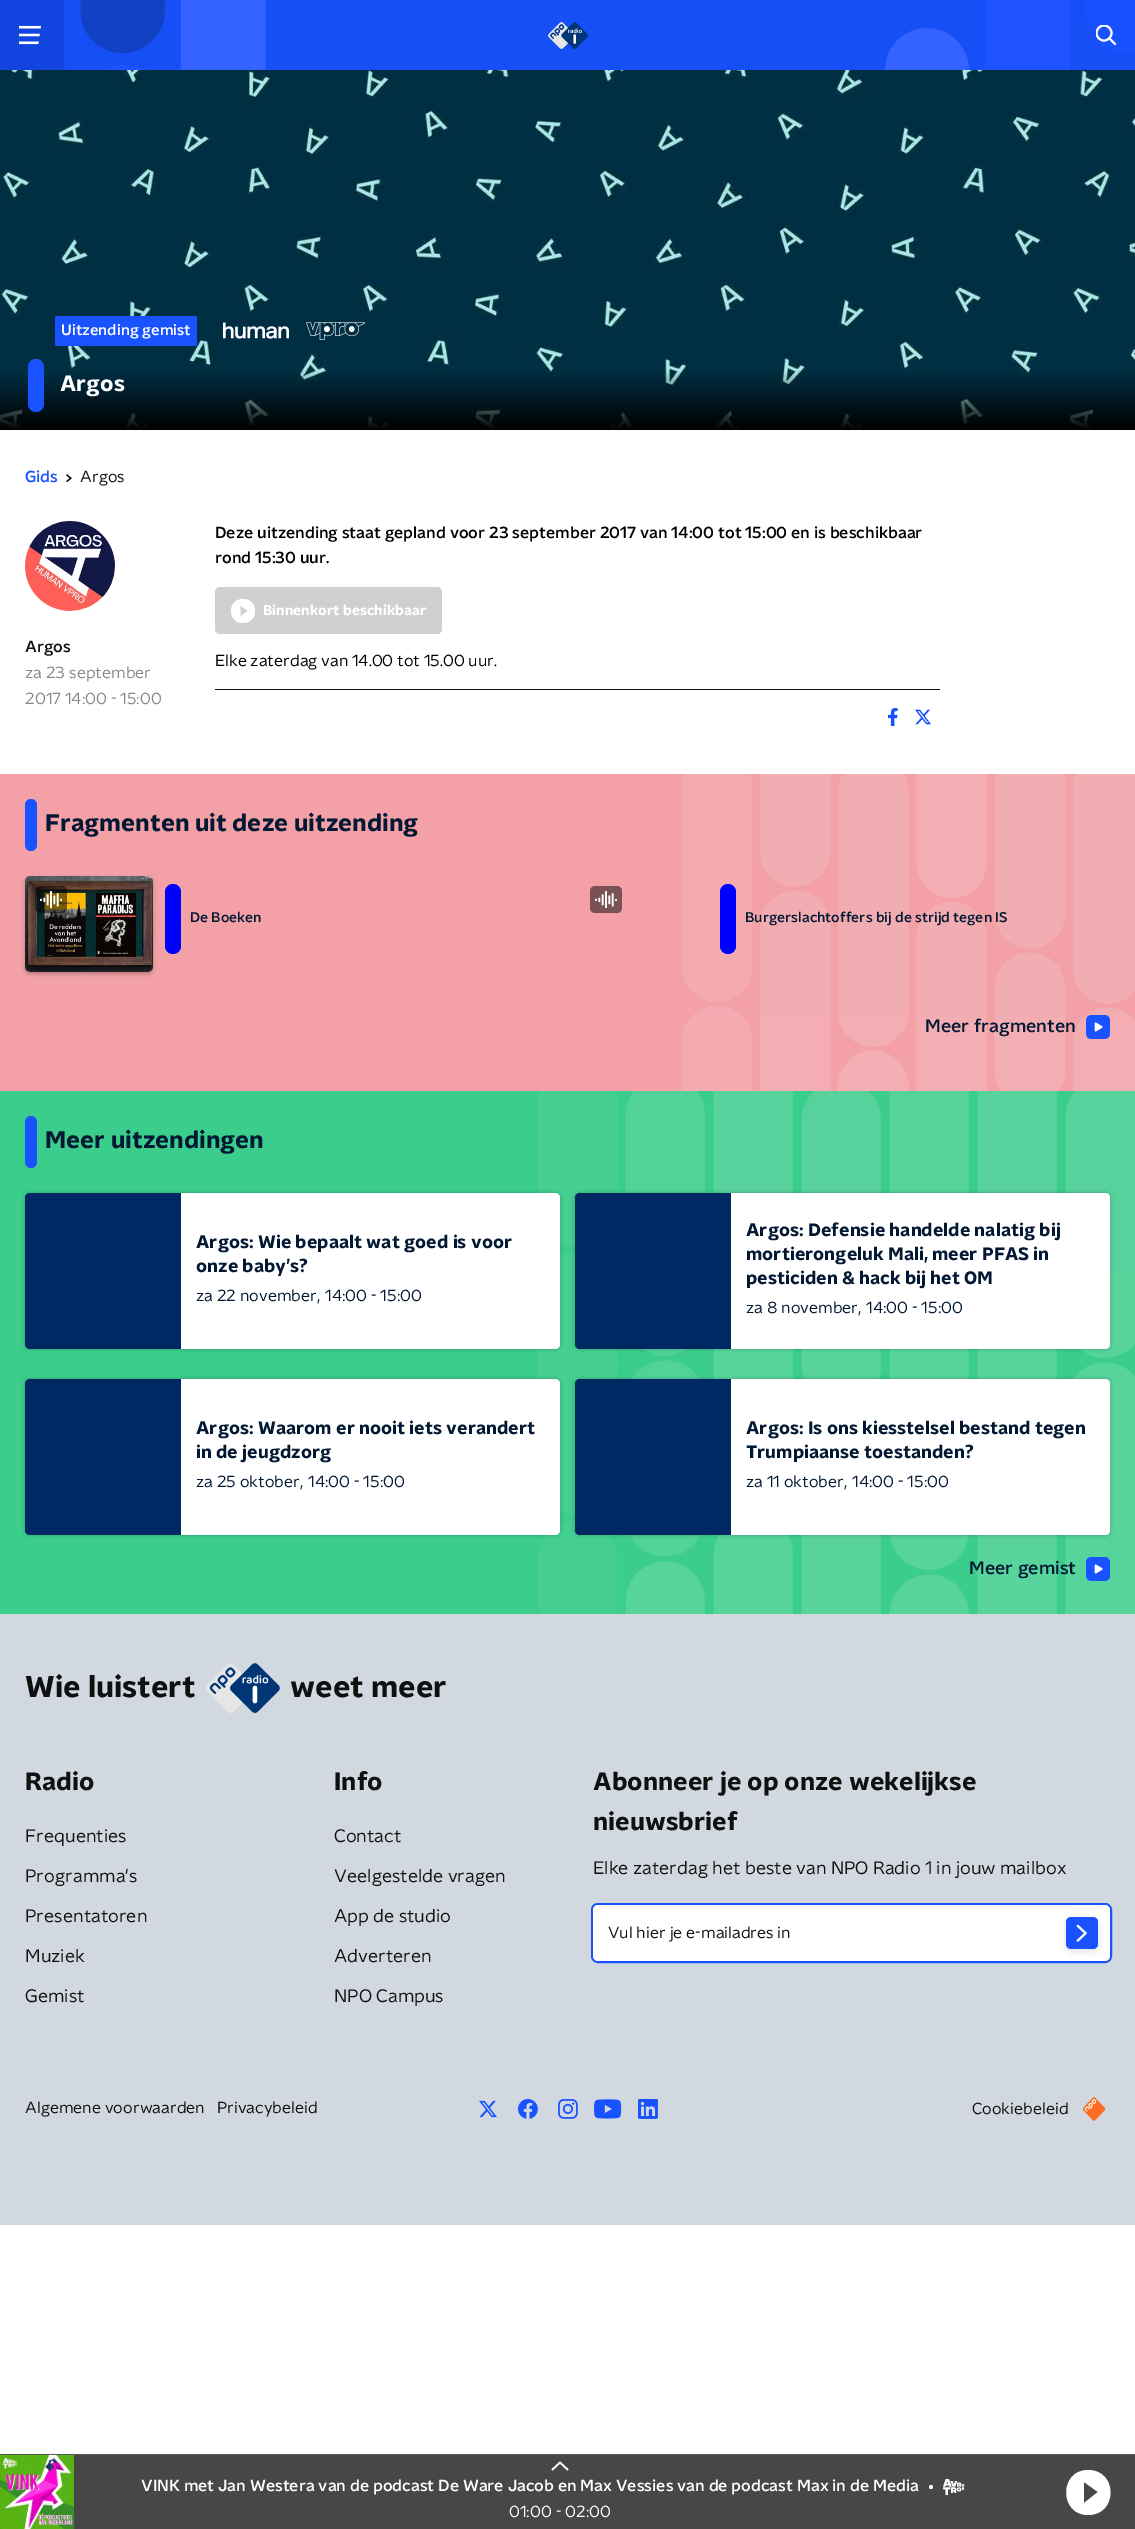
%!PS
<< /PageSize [1135 2529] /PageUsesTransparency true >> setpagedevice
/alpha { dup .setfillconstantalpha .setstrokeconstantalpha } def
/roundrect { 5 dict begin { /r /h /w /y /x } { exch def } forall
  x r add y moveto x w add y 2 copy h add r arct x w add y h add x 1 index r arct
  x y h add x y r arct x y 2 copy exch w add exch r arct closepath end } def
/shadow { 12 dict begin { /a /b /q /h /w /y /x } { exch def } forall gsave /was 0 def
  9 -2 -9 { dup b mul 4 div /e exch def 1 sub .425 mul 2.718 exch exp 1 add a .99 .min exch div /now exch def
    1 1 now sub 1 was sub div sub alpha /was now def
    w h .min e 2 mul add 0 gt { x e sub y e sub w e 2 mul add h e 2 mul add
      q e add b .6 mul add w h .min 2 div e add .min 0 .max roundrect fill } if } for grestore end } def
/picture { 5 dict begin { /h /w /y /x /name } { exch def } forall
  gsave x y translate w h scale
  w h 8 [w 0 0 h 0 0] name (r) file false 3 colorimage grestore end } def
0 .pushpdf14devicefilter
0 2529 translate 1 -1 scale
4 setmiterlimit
1 setgray
0 0 1135 2529 rectfill
(img1.rgb) 0 0 1135 70 picture
(img2.rgb) 19 25 22 20 picture
(img3.rgb) 548 22 40 27 picture
gsave
1096 25 20 20 rectclip
2 setlinewidth
newpath 1104 33 7.5 0 360 arc closepath stroke
2 setlinecap
newpath 1109.5 38.5 moveto 1115.5 44.5 lineto stroke
grestore
(img4.rgb) 0 70 1135 360 picture
0.098 0.322 1 setrgbcolor
55 316 142 30 2 roundrect fill
/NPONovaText-Medium [15 0 0 -15 0 0] selectfont
1 setgray
61 335 moveto (Uitzending gemist) show
(img5.rgb) 223 322 66 17 picture
(img6.rgb) 306 322 59 18 picture
0.098 0.322 1 setrgbcolor
28 359 16 53 8 roundrect fill
/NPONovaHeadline-Bold [22 0 0 -22 0 0] selectfont
1 setgray
60 391 moveto (Argos) show
/NPONovaText-Medium [16 0 0 -16 0 0] selectfont
0.098 0.322 1 setrgbcolor
25 482 moveto (Gids) show
(img7.rgb) 66 474 6 8 picture
/NPONovaText-Regular [16 0 0 -16 0 0] selectfont
0.063 setgray
80 482 moveto (Argos) show
(img8.rgb) 25 521 90 90 picture
/NPONovaText-Medium [16 0 0 -16 0 0] selectfont
25 652 moveto (Argos) show
/NPONovaText-Regular [16 0 0 -16 0 0] selectfont
0.533 setgray
25 678 moveto (za 23 september) show
25 704 moveto (2017 14:00 - 15:00) show
/NPONovaText-Medium [16 0 0 -16 0 0] selectfont
0 setgray
215 538 moveto (Deze uitzending staat gepland voor 23 september 2017 van 14:00 tot 15:00 en is beschikbaar) show
215 563 moveto (rond 15:30 uur.) show
0.816 setgray
215 587 227 47 5 roundrect fill
1 setgray
newpath 243 599 moveto 227 599 227 623 243 623 curveto 259 623 259 599 243 599 curveto closepath 240.5 616.5 moveto 240.5 605.5 lineto 248 611 lineto closepath fill
/NPONovaHeadline-Bold [14 0 0 -14 0 0] selectfont
263 615 moveto (Binnenkort beschikbaar) show
/NPONovaText-Regular [16 0 0 -16 0 0] selectfont
0 setgray
215 666 moveto (Elke zaterdag van 14.00 tot 15.00 uur.) show
0.063 setgray
215 689 725 1 rectfill
(img9.rgb) 888 708 10 18 picture
(img10.rgb) 915 709 16 16 picture
0.953 0.631 0.655 setrgbcolor
0 774 682 317 rectfill
(img11.rgb) 682 774 453 317 picture
0.098 0.322 1 setrgbcolor
25 799 12 52 6 roundrect fill
/NPONovaHeadline-Bold [24 0 0 -24 0 0] selectfont
0.008 0.094 0.2 setrgbcolor
45 831 moveto (Fragmenten uit deze uitzending) show
0 setgray
25 878 128 96 5 2 0.25 shadow
(img12.rgb) 25 876 128 96 picture
0.5 alpha
35 886 32 27 5 roundrect fill
1 alpha
(img13.rgb) 40 891 22 17 picture
0 0 1 setrgbcolor
165 884 16 70 8 roundrect fill
/NPONovaText-Medium [14 0 0 -14 0 0] selectfont
0.008 0.094 0.2 setrgbcolor
190 922 moveto (De Boeken) show
0.478 0.318 0.329 setrgbcolor
590 886 32 27 5 roundrect fill
(img14.rgb) 595 891 22 17 picture
0 0 1 setrgbcolor
720 884 16 70 8 roundrect fill
0.008 0.094 0.2 setrgbcolor
745 922 moveto (Burgerslachtoffers bij de strijd tegen IS) show
/NPONovaText-Medium [18 0 0 -18 0 0] selectfont
925 1032 moveto (Meer fragmenten) show
(img15.rgb) 1086 1015 24 24 picture
0.231 0.804 0.549 setrgbcolor
0 1091 538 523 rectfill
(img16.rgb) 538 1091 597 523 picture
0.098 0.322 1 setrgbcolor
25 1116 12 52 6 roundrect fill
/NPONovaHeadline-Bold [24 0 0 -24 0 0] selectfont
0.008 0.094 0.2 setrgbcolor
45 1148 moveto (Meer uitzendingen) show
0 setgray
25 1193 535 156 5 2 0.25 shadow
0 0.161 0.392 setrgbcolor
newpath 30 1193 moveto 181 1193 lineto 181 1349 lineto 30 1349 lineto 27 1349 25 1347 25 1344 curveto 25 1198 lineto 25 1195 27 1193 30 1193 curveto closepath fill
1 setgray
newpath 181 1193 moveto 555 1193 lineto 558 1193 560 1195 560 1198 curveto 560 1344 lineto 560 1347 558 1349 555 1349 curveto 181 1349 lineto closepath fill
/NPONovaHeadline-Bold [18 0 0 -18 0 0] selectfont
0.008 0.094 0.2 setrgbcolor
196 1248 moveto (Argos: Wie bepaalt wat goed is voor) show
196 1272 moveto (onze baby’s?) show
/NPONovaText-Regular [16 0 0 -16 0 0] selectfont
196 1301 moveto (za 22 november,) show
325 1301 moveto (14:00 - 15:00) show
0 setgray
575 1193 535 156 5 2 0.25 shadow
0 0.161 0.392 setrgbcolor
newpath 580 1193 moveto 731 1193 lineto 731 1349 lineto 580 1349 lineto 577 1349 575 1347 575 1344 curveto 575 1198 lineto 575 1195 577 1193 580 1193 curveto closepath fill
1 setgray
newpath 731 1193 moveto 1105 1193 lineto 1108 1193 1110 1195 1110 1198 curveto 1110 1344 lineto 1110 1347 1108 1349 1105 1349 curveto 731 1349 lineto closepath fill
/NPONovaHeadline-Bold [18 0 0 -18 0 0] selectfont
0.008 0.094 0.2 setrgbcolor
746 1236 moveto (Argos: Defensie handelde nalatig bij) show
746 1260 moveto (mortierongeluk Mali, meer PFAS in) show
746 1284 moveto (pesticiden & hack bij het OM) show
/NPONovaText-Regular [16 0 0 -16 0 0] selectfont
746 1313 moveto (za 8 november,) show
866 1313 moveto (14:00 - 15:00) show
0 setgray
25 1379 535 156 5 2 0.25 shadow
0 0.161 0.392 setrgbcolor
newpath 30 1379 moveto 181 1379 lineto 181 1535 lineto 30 1535 lineto 27 1535 25 1533 25 1530 curveto 25 1384 lineto 25 1381 27 1379 30 1379 curveto closepath fill
1 setgray
newpath 181 1379 moveto 555 1379 lineto 558 1379 560 1381 560 1384 curveto 560 1530 lineto 560 1533 558 1535 555 1535 curveto 181 1535 lineto closepath fill
/NPONovaHeadline-Bold [18 0 0 -18 0 0] selectfont
0.008 0.094 0.2 setrgbcolor
196 1434 moveto (Argos: Waarom er nooit iets verandert) show
196 1458 moveto (in de jeugdzorg) show
/NPONovaText-Regular [16 0 0 -16 0 0] selectfont
196 1487 moveto (za 25 oktober,) show
308 1487 moveto (14:00 - 15:00) show
0 setgray
575 1379 535 156 5 2 0.25 shadow
0 0.161 0.392 setrgbcolor
newpath 580 1379 moveto 731 1379 lineto 731 1535 lineto 580 1535 lineto 577 1535 575 1533 575 1530 curveto 575 1384 lineto 575 1381 577 1379 580 1379 curveto closepath fill
1 setgray
newpath 731 1379 moveto 1105 1379 lineto 1108 1379 1110 1381 1110 1384 curveto 1110 1530 lineto 1110 1533 1108 1535 1105 1535 curveto 731 1535 lineto closepath fill
/NPONovaHeadline-Bold [18 0 0 -18 0 0] selectfont
0.008 0.094 0.2 setrgbcolor
746 1434 moveto (Argos: Is ons kiesstelsel bestand tegen) show
746 1458 moveto (Trumpiaanse toestanden?) show
/NPONovaText-Regular [16 0 0 -16 0 0] selectfont
746 1487 moveto (za 11 oktober,) show
852 1487 moveto (14:00 - 15:00) show
/NPONovaText-Medium [18 0 0 -18 0 0] selectfont
969 1574 moveto (Meer gemist) show
(img17.rgb) 1086 1557 24 24 picture
0.82 0.847 0.875 setrgbcolor
0 1614 1135 611 rectfill
/NPONovaHeadline-Bold [30 0 0 -30 0 0] selectfont
0.063 setgray
25 1697 moveto (Wie luistert) show
(img18.rgb) 205 1663 75 50 picture
290 1697 moveto (weet meer) show
/NPONovaHeadline-Bold [25 0 0 -25 0 0] selectfont
25 1790 moveto (Radio) show
/NPONovaText-Regular [18 0 0 -18 0 0] selectfont
25 1842 moveto (Frequenties) show
25 1882 moveto (Programma's) show
25 1922 moveto (Presentatoren) show
25 1962 moveto (Muziek) show
25 2002 moveto (Gemist) show
/NPONovaHeadline-Bold [25 0 0 -25 0 0] selectfont
334 1790 moveto (Info) show
/NPONovaText-Regular [18 0 0 -18 0 0] selectfont
334 1842 moveto (Contact) show
334 1882 moveto (Veelgestelde vragen) show
334 1922 moveto (App de studio) show
334 1962 moveto (Adverteren) show
334 2002 moveto (NPO Campus) show
/NPONovaHeadline-Bold [25 0 0 -25 0 0] selectfont
593 1790 moveto (Abonneer je op onze wekelijkse) show
593 1830 moveto (nieuwsbrief) show
/NPONovaText-Regular [18 0 0 -18 0 0] selectfont
593 1874 moveto (Elke zaterdag het beste van NPO Radio 1 in jouw mailbox) show
0.098 0.322 1 setrgbcolor
2 setlinewidth
592 1904 519 58 6 roundrect stroke
1 setgray
593 1905 517 56 5 roundrect fill
/NPONovaText-Regular [16 0 0 -16 0 0] selectfont
0.063 setgray
608 1938 moveto (Vul hier je e-mailadres in) show
0 setgray
1065 1918 34 34 6 3.5 0.1 shadow
0.098 0.322 1 setrgbcolor
1066 1917 32 32 5 roundrect fill
(img19.rgb) 1076 1924 11 18 picture
0.063 setgray
25 2113 moveto (Algemene voorwaarden) show
217 2113 moveto (Privacybeleid) show
(img20.rgb) 479 2100 18 18 picture
(img21.rgb) 518 2099 20 20 picture
(img22.rgb) 558 2099 20 20 picture
(img23.rgb) 594 2099 28 20 picture
(img24.rgb) 638 2099 20 20 picture
972 2114 moveto (Cookiebeleid) show
(img25.rgb) 1082 2097 24 24 picture
0.278 setgray
74 2455 1061 74 rectfill
0.341 setgray
0 2454 1135 1 rectfill
(img26.rgb) 0 2455 74 74 picture
1 setgray
1.6 setlinewidth
newpath 568 2470 moveto 560 2462.5 lineto 552 2470 lineto stroke
/NPONovaText-Medium [16 0 0 -16 0 0] selectfont
141 2491 moveto (VINK met Jan Westera van de podcast De Ware Jacob en Max Vessies van de podcast Max in de Media) show
newpath 931 2487 2 0 360 arc closepath fill
(img27.rgb) 943 2479 22 16 picture
/NPONovaText-Regular [16 0 0 -16 0 0] selectfont
509 2517 moveto (01:00 - 02:00) show
newpath 1088 2470 moveto 1059 2470 1059 2515 1088 2515 curveto 1118 2515 1118 2470 1088 2470 curveto closepath 1084 2503 moveto 1084 2482 lineto 1098 2492 lineto closepath fill
.poppdf14devicefilter showpage
